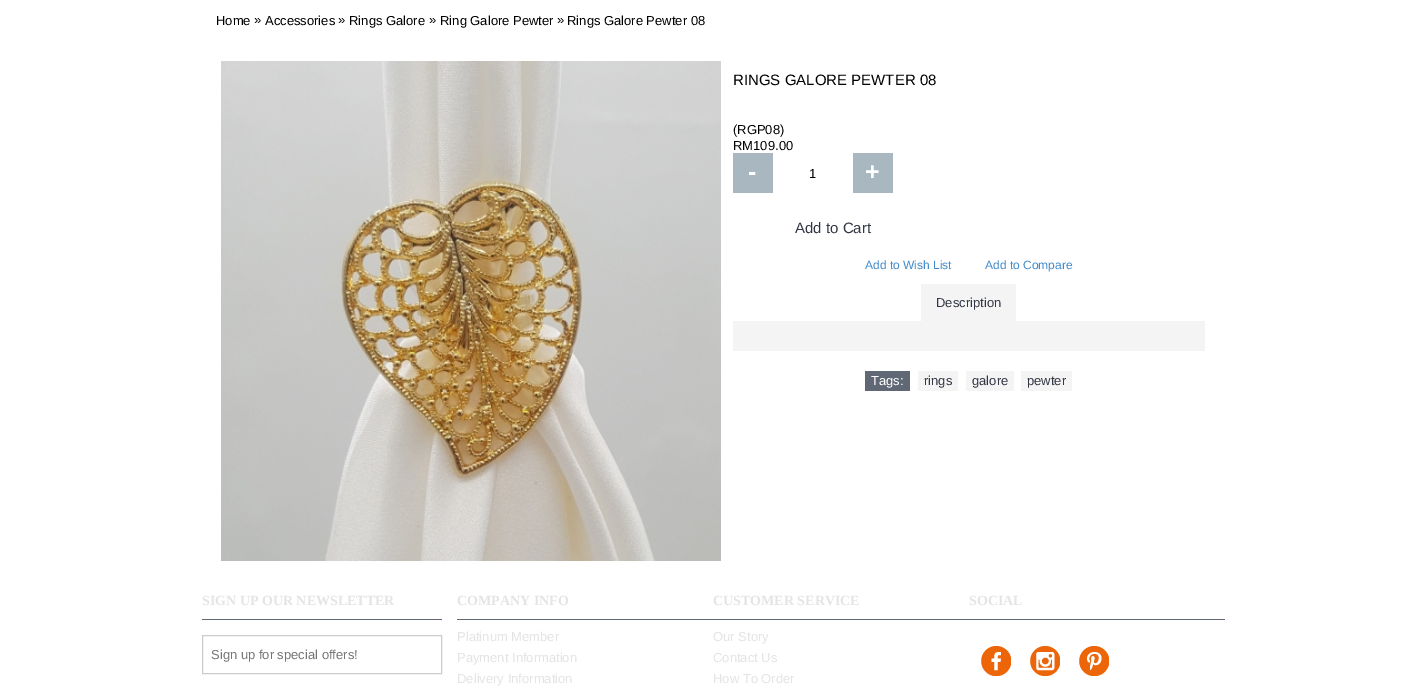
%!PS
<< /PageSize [1425 688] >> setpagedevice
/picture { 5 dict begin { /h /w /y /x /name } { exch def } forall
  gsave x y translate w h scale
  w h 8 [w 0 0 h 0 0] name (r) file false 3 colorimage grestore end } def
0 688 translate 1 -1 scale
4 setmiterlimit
1 setgray
0 0 1425 688 rectfill
/LiberationSans-Regular [13 0 0 -13 0 0] selectfont
0 setgray
216 25 moveto (Home) show
254 24 moveto (») show
265 25 moveto (Accessories) show
338 24 moveto (») show
349 25 moveto (Rings Galore) show
429 24 moveto (») show
440 25 moveto (Ring Galore Pewter) show
557 24 moveto (») show
567 25 moveto (Rings Galore Pewter 08) show
(img1.rgb) 221 61 500 500 picture
/LiberationSans-Regular [15 0 0 -15 0 0] selectfont
733 85 moveto (RINGS GALORE PEWTER 08) show
/LiberationSans-Regular [13 0 0 -13 0 0] selectfont
733 134 moveto (\(RGP08\)) show
733 150 moveto (RM109.00) show
0.663 0.722 0.753 setrgbcolor
733 153 40 40 rectfill
/LiberationSans-Bold [25 0 0 -25 0 0] selectfont
1 setgray
748 180 moveto (-) show
/LiberationSans-Regular [13 0 0 -13 0 0] selectfont
0 setgray
809 178 moveto (1) show
0.663 0.722 0.753 setrgbcolor
853 153 40 40 rectfill
/LiberationSans-Bold [25 0 0 -25 0 0] selectfont
1 setgray
865 180 moveto (+) show
/LiberationSans-Regular [15 0 0 -15 0 0] selectfont
0.2 0.216 0.271 setrgbcolor
795 233 moveto (Add to Cart) show
/LiberationSans-Regular [12 0 0 -12 0 0] selectfont
0.259 0.545 0.792 setrgbcolor
865 269 moveto (Add to Wish List) show
985 269 moveto (Add to Compare) show
0.957 setgray
921 284 95 37 rectfill
/LiberationSans-Regular [13 0 0 -13 0 0] selectfont
0.2 0.216 0.271 setrgbcolor
936 307 moveto (Description) show
0.957 setgray
733 321 472 30 rectfill
0.373 0.408 0.455 setrgbcolor
865 371 45 20 rectfill
1 setgray
871 385 moveto (Tags:) show
0.957 setgray
918 371 40 20 rectfill
0.2 0.216 0.271 setrgbcolor
924 385 moveto (rings) show
0.957 setgray
966 371 48 20 rectfill
0.2 0.216 0.271 setrgbcolor
972 385 moveto (galore) show
0.957 setgray
1021 371 51 20 rectfill
0.2 0.216 0.271 setrgbcolor
1027 385 moveto (pewter) show
0.373 0.408 0.455 setrgbcolor
202 619 240 1 rectfill
/LiberationSerif-Bold [14 0 0 -14 0 0] selectfont
0.894 setgray
202 605 moveto (SIGN UP OUR NEWSLETTER) show
0.8 setgray
202.5 635.5 239 38 rectstroke
/LiberationSans-Regular [13 0 0 -13 0 0] selectfont
0.459 setgray
211 659 moveto (Sign up for special offers!) show
0.373 0.408 0.455 setrgbcolor
457 619 768 1 rectfill
/LiberationSerif-Bold [14 0 0 -14 0 0] selectfont
0.894 setgray
457 605 moveto (COMPANY INFO) show
/LiberationSans-Regular [13 0 0 -13 0 0] selectfont
457 641 moveto (Platinum Member) show
457 662 moveto (Payment Information) show
457 683 moveto (Delivery Information) show
/LiberationSerif-Bold [14 0 0 -14 0 0] selectfont
713 605 moveto (CUSTOMER SERVICE) show
/LiberationSans-Regular [13 0 0 -13 0 0] selectfont
713 641 moveto (Our Story) show
713 662 moveto (Contact Us) show
713 683 moveto (How To Order) show
/LiberationSerif-Bold [14 0 0 -14 0 0] selectfont
969 605 moveto (SOCIAL) show
(img2.rgb) 981 646 30 30 picture
(img3.rgb) 1030 646 30 30 picture
(img4.rgb) 1079 646 30 30 picture
showpage
